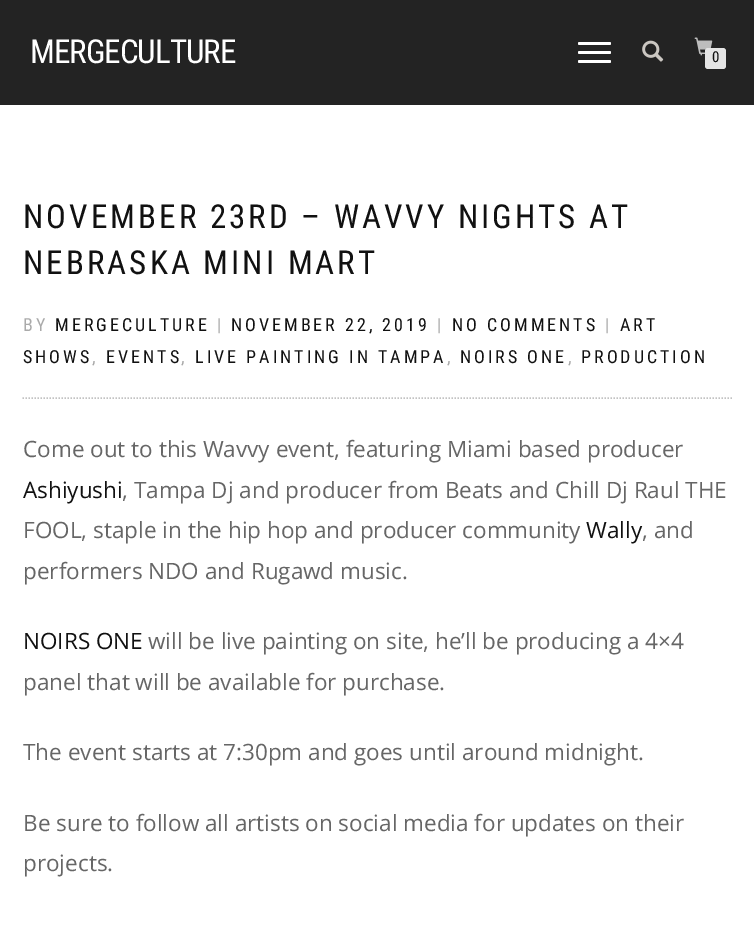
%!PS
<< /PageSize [754 934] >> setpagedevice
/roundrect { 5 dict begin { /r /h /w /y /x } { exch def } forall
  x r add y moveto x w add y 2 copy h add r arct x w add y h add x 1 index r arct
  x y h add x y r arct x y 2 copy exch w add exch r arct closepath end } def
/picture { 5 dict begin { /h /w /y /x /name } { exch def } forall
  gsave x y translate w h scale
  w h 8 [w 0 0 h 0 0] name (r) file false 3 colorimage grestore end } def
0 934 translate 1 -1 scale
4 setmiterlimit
1 setgray
0 0 754 934 rectfill
0.137 setgray
0 0 754 105 rectfill
/RobotoCondensed-Regular [33 0 0 -33 0 0] selectfont
1 setgray
30 63 moveto -1 0 (MERGECULTURE) ashow
578 42 33 3 1.5 roundrect fill
578 51 33 3 1.5 roundrect fill
578 60 33 3 1.5 roundrect fill
(img1.rgb) 642 40 22 22 picture
(img2.rgb) 694 37 19 19 picture
0.898 setgray
705 48 21 21 3 roundrect fill
/RobotoCondensed-Regular [15 0 0 -15 0 0] selectfont
0.067 setgray
712 62 moveto (0) show
/RobotoCondensed-Regular [33 0 0 -33 0 0] selectfont
23 228 moveto 3 0 (NOVEMBER 23RD – WAVVY NIGHTS AT) ashow
23 274 moveto 3 0 (NEBRASKA MINI MART) ashow
/RobotoCondensed-Regular [18 0 0 -18 0 0] selectfont
0.667 setgray
23 331 moveto 3 0 (BY) ashow
0.067 setgray
55 331 moveto 3 0 (MERGECULTURE) ashow
0.667 setgray
217 331 moveto 3 0 (|) ashow
0.067 setgray
231 331 moveto 3 0 (NOVEMBER 22, 2019) ashow
0.667 setgray
437 331 moveto 3 0 (|) ashow
0.067 setgray
452 331 moveto 3 0 (NO COMMENTS) ashow
0.667 setgray
605 331 moveto 3 0 (|) ashow
0.067 setgray
620 331 moveto 3 0 (ART) ashow
23 363 moveto 3 0 (SHOWS) ashow
0.667 setgray
92 363 moveto 3 0 (,) ashow
0.067 setgray
106 363 moveto 3 0 (EVENTS) ashow
0.667 setgray
181 363 moveto 3 0 (,) ashow
0.067 setgray
195 363 moveto 3 0 (LIVE PAINTING IN TAMPA) ashow
0.667 setgray
447 363 moveto 3 0 (,) ashow
0.067 setgray
460 363 moveto 3 0 (NOIRS ONE) ashow
0.667 setgray
568 363 moveto 3 0 (,) ashow
0.067 setgray
581 363 moveto 3 0 (PRODUCTION) ashow
0.761 setgray
1.5 setlinewidth
[1.5 1.5] 0 setdash
newpath 22.5 398 moveto 732 398 lineto stroke
/OpenSans-Regular [22.5 0 0 -22.5 0 0] selectfont
0.4 setgray
23 457 moveto (Come out to this Wavvy event, featuring Miami based producer) show
0.067 setgray
23 498 moveto (Ashiyushi) show
0.4 setgray
122 498 moveto (, Tampa Dj and producer from Beats and Chill Dj Raul THE) show
23 538 moveto (FOOL, staple in the hip hop and producer community) show
0.067 setgray
586 538 moveto (Wally) show
0.4 setgray
642 538 moveto (, and) show
23 579 moveto (performers NDO and Rugawd music.) show
0.067 setgray
23 649 moveto (NOIRS ONE) show
0.4 setgray
148 649 moveto (will be live painting on site, he’ll be producing a 4×4) show
23 690 moveto (panel that will be available for purchase.) show
23 760 moveto (The event starts at 7:30pm and goes until around midnight.) show
23 831 moveto (Be sure to follow all artists on social media for updates on their) show
23 871 moveto (projects.) show
showpage
